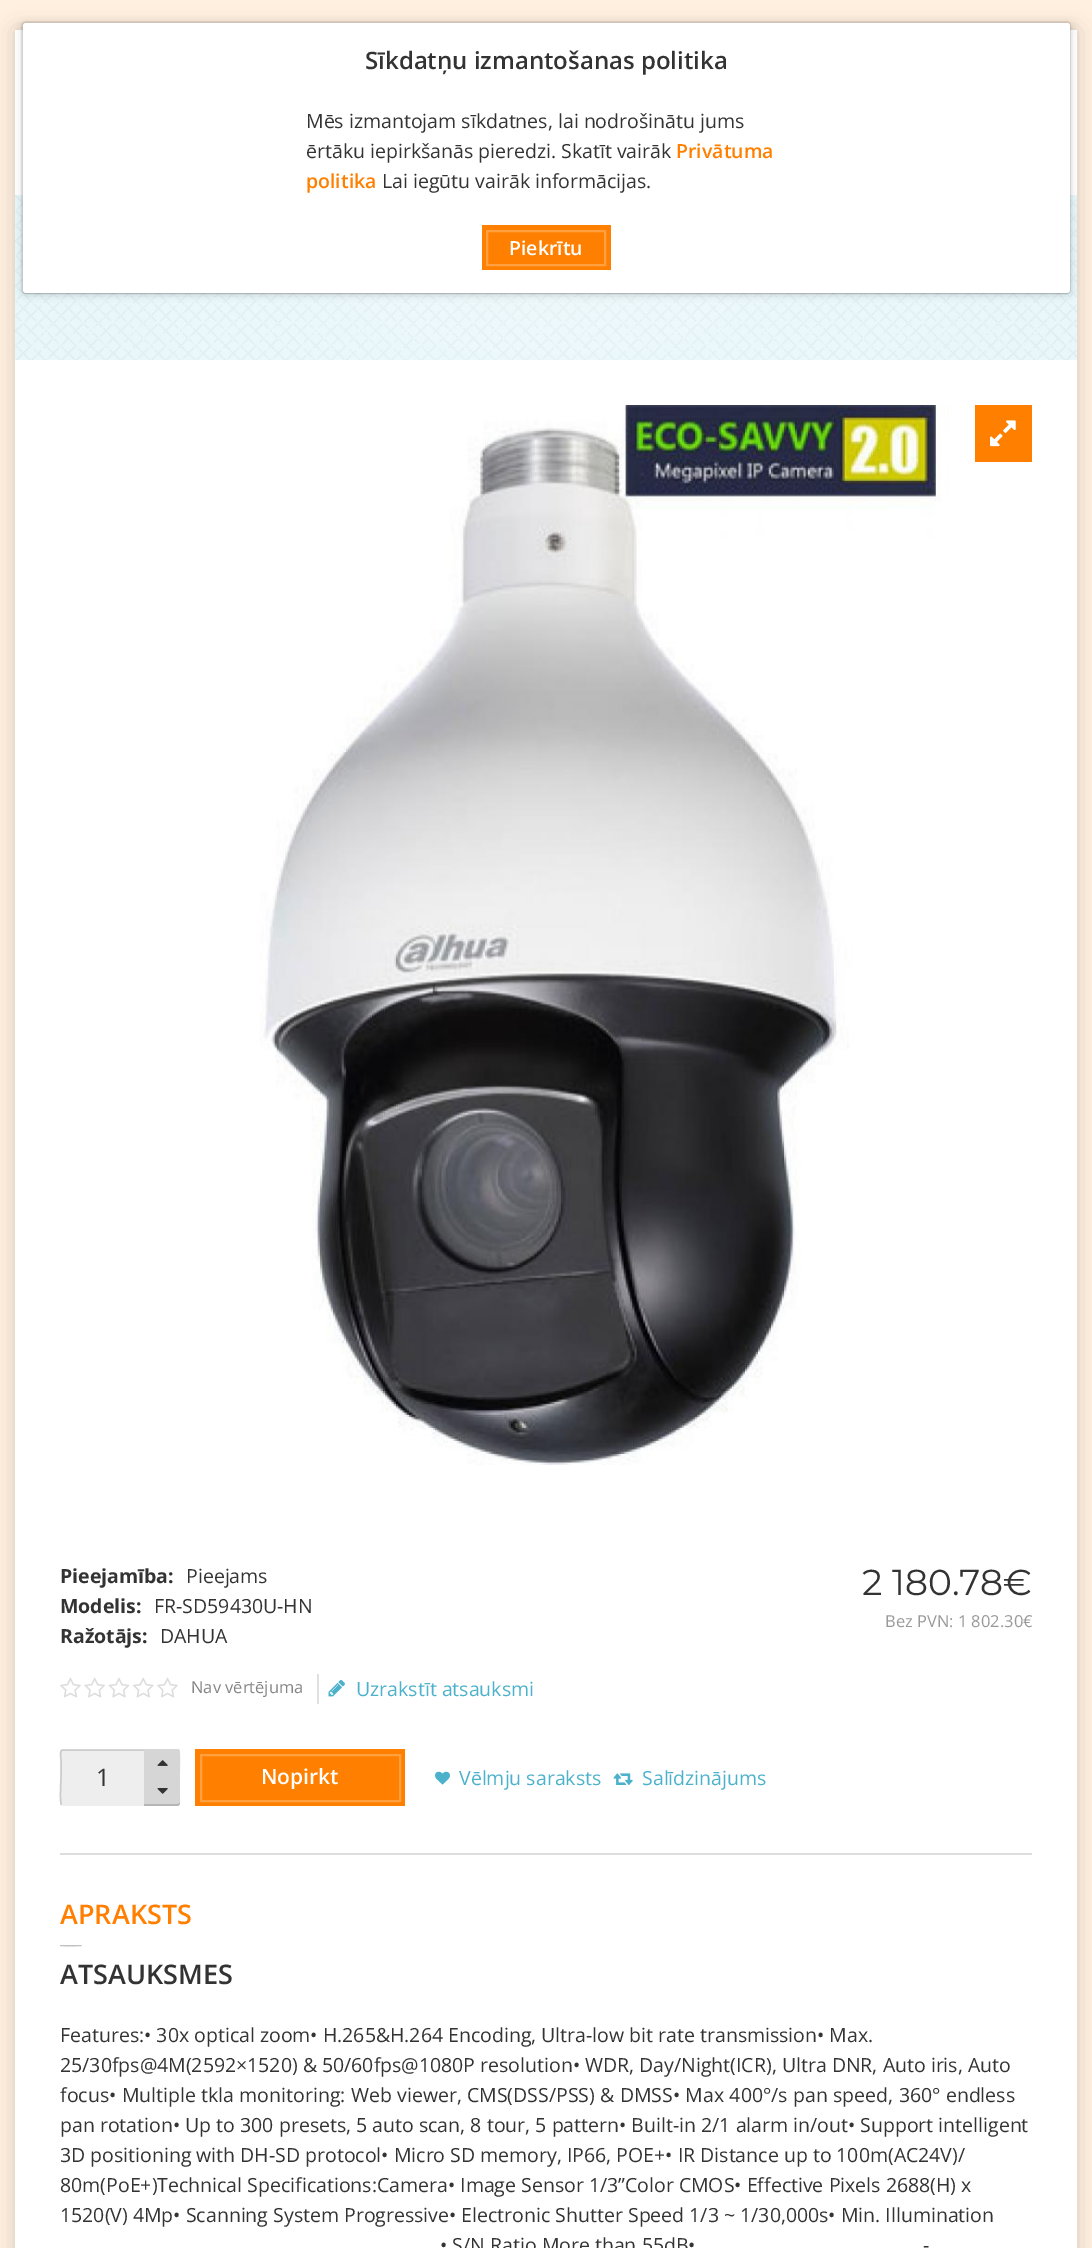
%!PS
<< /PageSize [1092 2248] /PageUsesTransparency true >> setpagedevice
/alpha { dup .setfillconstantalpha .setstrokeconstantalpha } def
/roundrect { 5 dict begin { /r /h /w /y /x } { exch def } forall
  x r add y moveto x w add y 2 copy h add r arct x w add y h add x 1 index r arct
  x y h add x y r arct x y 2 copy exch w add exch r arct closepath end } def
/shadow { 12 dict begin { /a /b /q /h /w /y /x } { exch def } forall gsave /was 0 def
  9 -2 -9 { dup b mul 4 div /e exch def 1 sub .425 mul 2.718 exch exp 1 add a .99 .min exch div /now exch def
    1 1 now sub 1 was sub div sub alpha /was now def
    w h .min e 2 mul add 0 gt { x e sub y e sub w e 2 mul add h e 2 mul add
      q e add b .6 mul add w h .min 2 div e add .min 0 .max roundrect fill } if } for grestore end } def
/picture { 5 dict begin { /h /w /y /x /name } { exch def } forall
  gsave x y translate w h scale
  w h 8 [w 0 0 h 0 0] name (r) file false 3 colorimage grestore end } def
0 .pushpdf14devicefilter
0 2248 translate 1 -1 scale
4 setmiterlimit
1 0.941 0.878 setrgbcolor
0 0 1092 2248 rectfill
0 setgray
15 30 1062 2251 0 11 0.15 shadow
1 setgray
15 30 1062 2218 rectfill
0.902 0.965 0.98 setrgbcolor
15 195 1062 165 rectfill
(img1.rgb) 15 195 1062 165 picture
0 setgray
23 24 1047 270 3 4 0.2 shadow
0.08 alpha
2 setlinewidth
22 22 1048 271 4 roundrect stroke
0.1 alpha
newpath 23 291 moveto 23 293 24 294 26 294 curveto 1067 294 lineto 1069 294 1070 293 1070 291 curveto 1070 27 lineto 1069 25 lineto 1070 290 lineto 1070 291 1068 292 1066 292 curveto 26 292 lineto 24 292 24 292 23 291 curveto closepath fill
1 alpha
1 setgray
23 23 1047 270 3 roundrect fill
/OpenSans-SemiBold [24 0 0 -24 0 0] selectfont
0.2 setgray
365 69 moveto (Sīkdatņu izmantošanas politika) show
/OpenSans-Regular [19.5 0 0 -19.5 0 0] selectfont
306 128 moveto (Mēs izmantojam sīkdatnes, lai nodrošinātu jums) show
306 158 moveto (ērtāku iepirkšanās pieredzi. Skatīt vairāk) show
/OpenSans-SemiBold [19.5 0 0 -19.5 0 0] selectfont
1 0.502 0 setrgbcolor
676 158 moveto (Privātuma) show
306 188 moveto (politika) show
/OpenSans-Regular [19.5 0 0 -19.5 0 0] selectfont
0.2 setgray
382 188 moveto (Lai iegūtu vairāk informācijas.) show
1 0.502 0 setrgbcolor
482 225 129 45 rectfill
1 0.627 0.251 setrgbcolor
487 231 118 34 rectstroke
/OpenSans-SemiBold [19.5 0 0 -19.5 0 0] selectfont
1 setgray
509 255 moveto (Piekrītu) show
(img2.rgb) 260 405 689 1060 picture
1 0.502 0 setrgbcolor
975 405 57 57 rectfill
(img3.rgb) 990 420 26 27 picture
/OpenSans-Bold [19.5 0 0 -19.5 0 0] selectfont
0.2 setgray
60 1583 moveto (Pieejamība:) show
/OpenSans-Regular [19.5 0 0 -19.5 0 0] selectfont
186 1583 moveto (Pieejams) show
/OpenSans-Bold [19.5 0 0 -19.5 0 0] selectfont
60 1613 moveto (Modelis:) show
/OpenSans-Regular [19.5 0 0 -19.5 0 0] selectfont
154 1613 moveto (FR-SD59430U-HN) show
/OpenSans-Bold [19.5 0 0 -19.5 0 0] selectfont
60 1643 moveto (Ražotājs:) show
/OpenSans-Regular [19.5 0 0 -19.5 0 0] selectfont
160 1643 moveto (DAHUA) show
/Montserrat-Thin [36 0 0 -36 0 0] selectfont
862 1595 moveto (2 180.78€) show
/OpenSans-Regular [16.5 0 0 -16.5 0 0] selectfont
0.6 setgray
885 1627 moveto (Bez PVN: 1 802.30€) show
(img4.rgb) 60 1677 118 21 picture
0.522 setgray
191 1693 moveto (Nav vērtējuma) show
0.878 setgray
317 1674 2 30 rectfill
(img5.rgb) 328 1679 17 18 picture
/OpenSans-Regular [19.5 0 0 -19.5 0 0] selectfont
0.298 0.694 0.792 setrgbcolor
356 1696 moveto (Uzrakstīt atsauksmi) show
0.933 setgray
60 1749 120 57 3 roundrect fill
1.5 setlinewidth
newpath 178.5 1750.5 moveto 180.5 1752 179 1774 179 1777.5 curveto 179 1794.5 lineto 179 1798.5 181 1805 177 1805 curveto 63 1805 lineto 61.5 1804.5 lineto stroke
0.8 setgray
newpath 61.5 1804.5 moveto 59.5 1803 61 1781 61 1777.5 curveto 61 1760.5 lineto 61 1756.5 59 1750 63 1750 curveto 177 1750 lineto 178.5 1750.5 lineto stroke
/OpenSans-Regular [24 0 0 -24 0 0] selectfont
0.2 setgray
96 1786 moveto (1) show
0.839 setgray
newpath 144 1749 moveto 177 1749 lineto 178.5 1749 180 1750.5 180 1752 curveto 180 1778 lineto 144 1778 lineto closepath fill
(img6.rgb) 157 1760 11 6 picture
newpath 144 1776 moveto 180 1776 lineto 180 1803 lineto 180 1804.5 178.5 1806 177 1806 curveto 144 1806 lineto closepath fill
0.15 alpha
0 setgray
newpath 144 1804 moveto 144 1806 lineto 177 1806 lineto 178.5 1806 180 1804.5 180 1803 curveto 180 1802 lineto 180 1803 179 1804 177 1804 curveto closepath fill
1 alpha
(img7.rgb) 157 1788 11 6 picture
1 0.502 0 setrgbcolor
195 1749 210 57 rectfill
1 0.627 0.251 setrgbcolor
2 setlinewidth
201 1755 199 46 rectstroke
/OpenSans-SemiBold [21 0 0 -21 0 0] selectfont
1 setgray
261 1784 moveto (Nopirkt) show
(img8.rgb) 435 1771 15 14 picture
/OpenSans-Regular [19.5 0 0 -19.5 0 0] selectfont
0.298 0.694 0.792 setrgbcolor
459 1785 moveto (Vēlmju saraksts) show
(img9.rgb) 613 1773 20 12 picture
642 1785 moveto (Salīdzinājums) show
0.867 setgray
60 1853 972 2 rectfill
/OpenSans-SemiBold [27 0 0 -27 0 0] selectfont
1 0.502 0 setrgbcolor
60 1924 moveto (APRAKSTS) show
/OpenSans-Regular [22 0 0 -22 0 0] selectfont
0.761 setgray
60 1943 moveto -5.5 0 (____) ashow
/OpenSans-SemiBold [27 0 0 -27 0 0] selectfont
0.2 setgray
60 1984 moveto (ATSAUKSMES) show
/OpenSans-Regular [19.5 0 0 -19.5 0 0] selectfont
60 2042 moveto (Features:• 30x optical zoom• H.265&H.264 Encoding, Ultra-low bit rate transmission• Max.) show
60 2072 moveto (25/30fps@4M\(2592×1520\) & 50/60fps@1080P resolution• WDR, Day/Night\(ICR\), Ultra DNR, Auto iris, Auto) show
60 2102 moveto (focus) show
109 2102 moveto 0.3 0 32 (• Multiple tkla monitoring: Web viewer, CMS\(DSS/PSS\) & DMSS• Max 400°/s pan speed, 360° endless) widthshow
60 2132 moveto (pan rotation• Up to 300 presets, 5 auto scan, 8 tour, 5 pattern• Built-in 2/1 alarm in/out• Support intelligent) show
60 2162 moveto (3D positioning with DH-SD protocol• Micro SD memory, IP66, POE+• IR Distance up to 100m\(AC24V\)/) show
60 2192 moveto (80m\(PoE+\)Technical Specifications:Camera• Image Sensor 1/3”Color CMOS• Effective Pixels 2688\(H\) x) show
60 2222 moveto (1520\(V\) 4Mp• Scanning System Progressive• Electronic Shutter Speed 1/3 ~ 1/30,000s• Min. Illumination) show
440 2252 moveto (• S/N Ratio More than 55dB•) show
923 2252 moveto (-) show
.poppdf14devicefilter showpage
